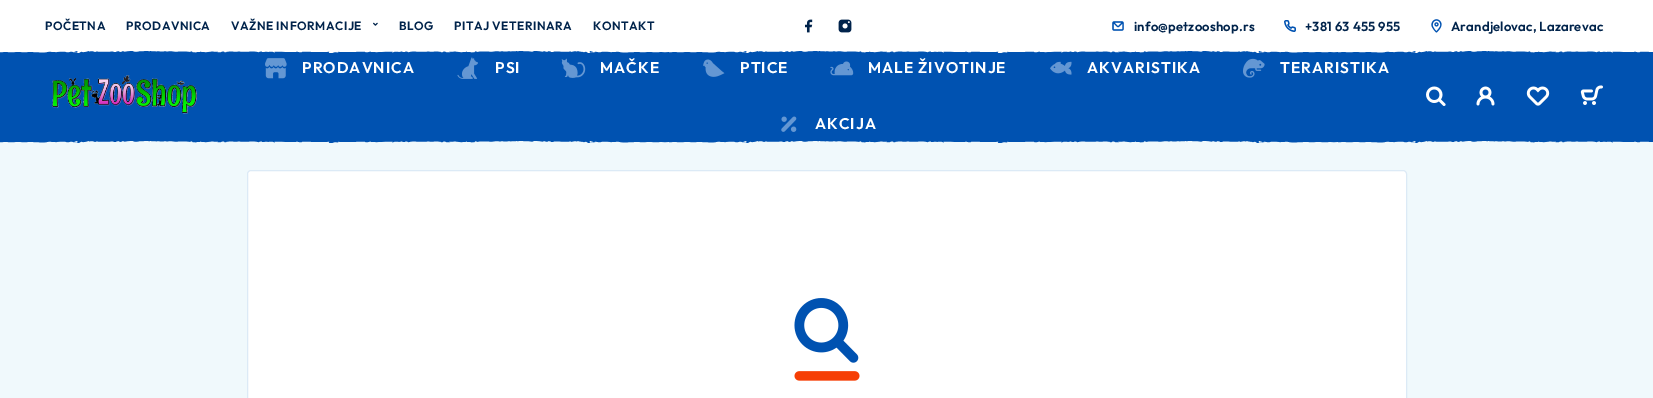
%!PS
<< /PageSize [1653 398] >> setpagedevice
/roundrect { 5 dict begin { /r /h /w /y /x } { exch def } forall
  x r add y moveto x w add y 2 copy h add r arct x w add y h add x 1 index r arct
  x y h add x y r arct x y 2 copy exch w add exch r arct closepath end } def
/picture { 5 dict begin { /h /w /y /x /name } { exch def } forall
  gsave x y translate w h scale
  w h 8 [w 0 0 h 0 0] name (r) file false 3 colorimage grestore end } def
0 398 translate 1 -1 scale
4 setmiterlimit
0.941 0.976 0.988 setrgbcolor
0 0 1653 398 rectfill
1 setgray
0 0 1653 50 rectfill
/Outfit-SemiBold [12 0 0 -12 0 0] selectfont
0 0.137 0.294 setrgbcolor
45 30 moveto 0.5 0 (POČETNA) ashow
126 30 moveto 0.5 0 (PRODAVNICA) ashow
231 30 moveto 0.5 0 (VAŽNE INFORMACIJE) ashow
(img1.rgb) 373 22 5 4 picture
399 30 moveto 0.5 0 (BLOG) ashow
454 30 moveto 0.5 0 (PITAJ VETERINARA) ashow
593 30 moveto 0.5 0 (KONTAKT) ashow
(img2.rgb) 805 19 8 14 picture
(img3.rgb) 838 19 14 14 picture
(img4.rgb) 1112 21 12 10 picture
/Outfit-SemiBold [13 0 0 -13 0 0] selectfont
1134 31 moveto 0.2 0 (info@petzooshop.rs) ashow
(img5.rgb) 1284 20 12 12 picture
1305 31 moveto 0.2 0 (+381 63 455 955) ashow
(img6.rgb) 1431 19 11 14 picture
1451 31 moveto 0.2 0 (Arandjelovac, Lazarevac) ashow
0 0.322 0.694 setrgbcolor
0 51 1653 89 rectfill
(img7.rgb) 0 50 1653 3 picture
(img8.rgb) 52 75 145 39 picture
(img9.rgb) 265 58 22 21 picture
/Outfit-SemiBold [15.5 0 0 -15.5 0 0] selectfont
1 setgray
302 73 moveto 1 0 (PRODAVNICA) ashow
(img10.rgb) 457 57 21 22 picture
495 73 moveto 1 0 (PSI) ashow
(img11.rgb) 561 58 25 20 picture
600 73 moveto 1 0 (MAČKE) ashow
(img12.rgb) 703 59 22 18 picture
740 73 moveto 1 0 (PTICE) ashow
(img13.rgb) 830 61 24 15 picture
868 73 moveto 1 0 (MALE ŽIVOTINJE) ashow
(img14.rgb) 1050 61 22 14 picture
1087 73 moveto 1 0 (AKVARISTIKA) ashow
(img15.rgb) 1243 58 22 20 picture
1280 73 moveto 1 0 (TERARISTIKA) ashow
(img16.rgb) 781 116 16 16 picture
815 129 moveto 1 0 (AKCIJA) ashow
(img17.rgb) 1426 86 20 20 picture
(img18.rgb) 1476 86 19 20 picture
(img19.rgb) 1526 86 24 20 picture
(img20.rgb) 1580 85 23 20 picture
(img21.rgb) 0 140 1653 3 picture
247 170 1160 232 4 roundrect fill
(img22.rgb) 794 298 66 83 picture
0.863 0.918 0.965 setrgbcolor
247.5 170.5 1159 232 3.5 roundrect stroke
showpage
